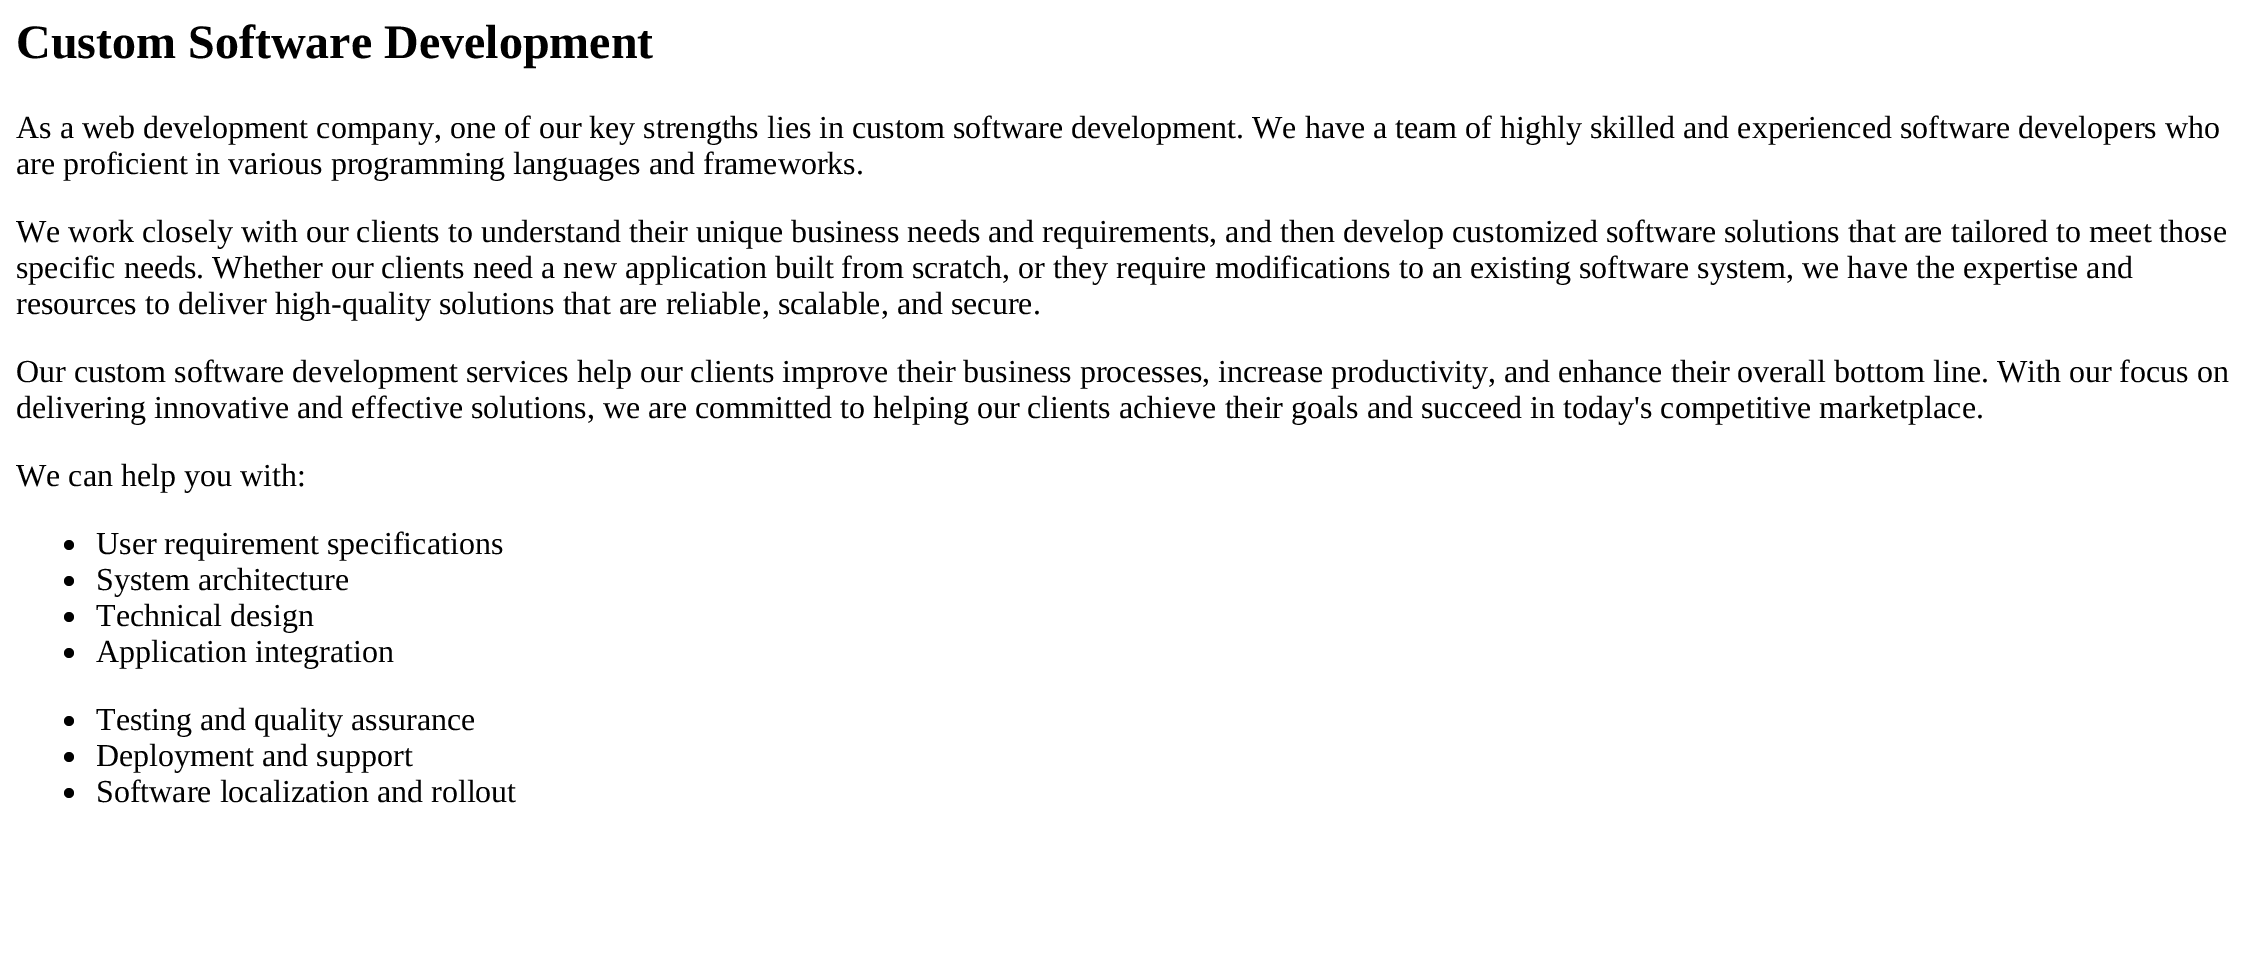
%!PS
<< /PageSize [2257 961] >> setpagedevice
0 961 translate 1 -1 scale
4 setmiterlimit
1 setgray
0 0 2257 961 rectfill
/LiberationSerif-Bold [48 0 0 -48 0 0] selectfont
0 setgray
16 58 moveto (Custom Software Development) show
/LiberationSerif-Regular [32 0 0 -32 0 0] selectfont
16 138 moveto (As a web development company, one of our key strengths lies in custom software development. We have a team of highly skilled and experienced software developers who) show
16 174 moveto (are proficient in various programming languages and frameworks.) show
16 242 moveto (We work closely with our clients to understand their unique business needs and requirements, and then develop customized software solutions that are tailored to meet those) show
16 278 moveto (specific needs. Whether our clients need a new application built from scratch, or they require modifications to an existing software system, we have the expertise and) show
16 314 moveto (resources to deliver high-quality solutions that are reliable, scalable, and secure.) show
16 382 moveto (Our custom software development services help our clients improve their business processes, increase productivity, and enhance their overall bottom line. With our focus on) show
16 418 moveto (delivering innovative and effective solutions, we are committed to helping our clients achieve their goals and succeed in today's competitive marketplace.) show
16 486 moveto (We can help you with:) show
newpath 69 545 5 0 360 arc closepath fill
96 554 moveto (User requirement specifications) show
newpath 69 581 5 0 360 arc closepath fill
96 590 moveto (System architecture) show
newpath 69 617 5 0 360 arc closepath fill
96 626 moveto (Technical design) show
newpath 69 653 5 0 360 arc closepath fill
96 662 moveto (Application integration) show
newpath 69 721 5 0 360 arc closepath fill
96 730 moveto (Testing and quality assurance) show
newpath 69 757 5 0 360 arc closepath fill
96 766 moveto (Deployment and support) show
newpath 69 793 5 0 360 arc closepath fill
96 802 moveto (Software localization and rollout) show
showpage
